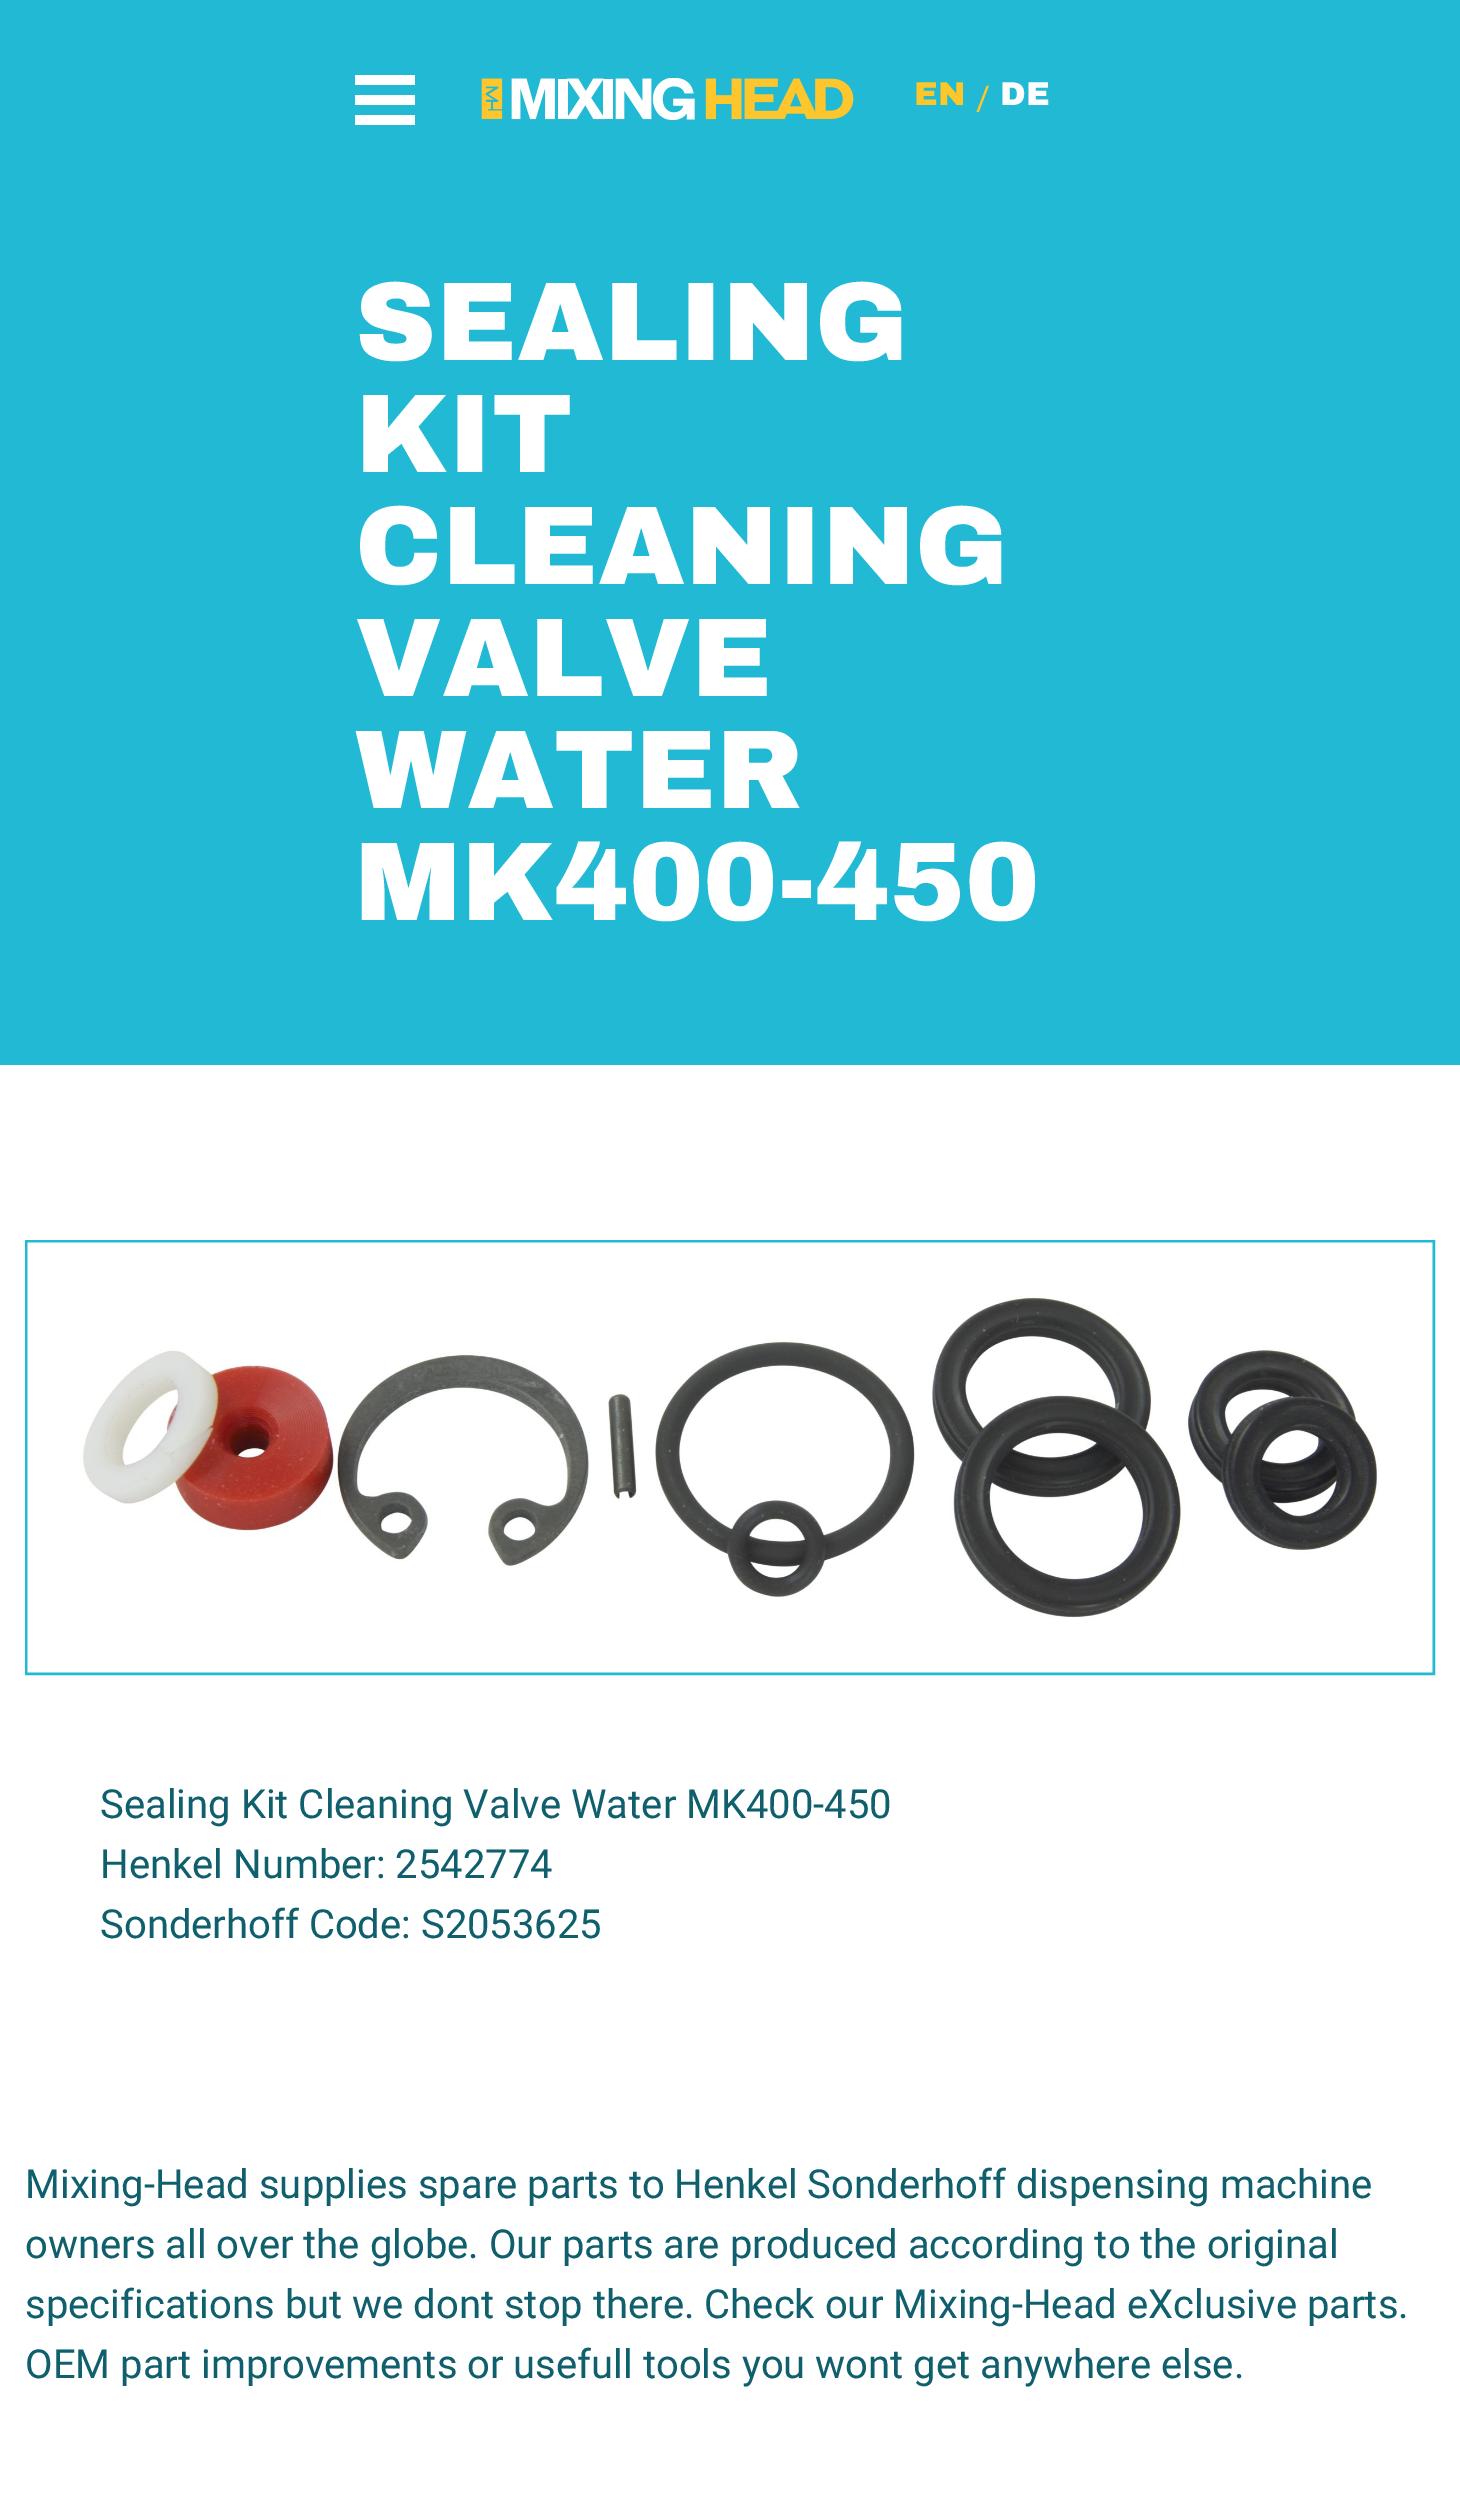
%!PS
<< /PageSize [1460 2518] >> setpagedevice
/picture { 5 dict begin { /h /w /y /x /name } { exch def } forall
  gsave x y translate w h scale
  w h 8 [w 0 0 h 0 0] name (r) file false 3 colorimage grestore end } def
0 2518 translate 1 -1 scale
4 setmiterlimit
1 setgray
0 0 1460 2518 rectfill
0.129 0.725 0.831 setrgbcolor
0 0 1460 1065 rectfill
1 setgray
355 75 60 10 rectfill
355 95 60 10 rectfill
355 115 60 10 rectfill
(img1.rgb) 481 78 373 42 picture
/ArchivoBlack-Black [33 0 0 -33 0 0] selectfont
0.992 0.776 0.165 setrgbcolor
914 105 moveto (EN) show
/Roboto-Regular [34 0 0 -34 0 0] selectfont
976 110 moveto (/) show
/ArchivoBlack-Black [33 0 0 -33 0 0] selectfont
1 setgray
1000 105 moveto (DE) show
/ArchivoBlack-Black [112 0 0 -112 0 0] selectfont
355 360 moveto (SEALING) show
355 472 moveto (KIT) show
355 584 moveto (CLEANING) show
355 696 moveto (VALVE) show
355 808 moveto (WATER) show
355 920 moveto (MK400-450) show
0.129 0.725 0.831 setrgbcolor
3 setlinewidth
26.5 1241.5 1407 432 rectstroke
(img2.rgb) 27 1242 1406 431 picture
/Roboto-Regular [40 0 0 -40 0 0] selectfont
0.063 0.373 0.427 setrgbcolor
100 1818 moveto (Sealing Kit Cleaning Valve Water MK400-450) show
100 1878 moveto (Henkel Number: 2542774) show
100 1938 moveto (Sonderhoff Code: S2053625) show
25 2198 moveto (Mixing-Head supplies spare parts to Henkel Sonderhoff dispensing machine) show
25 2258 moveto (owners all over the globe. Our parts are produced according to the original) show
25 2318 moveto (specifications but we dont stop there. Check our Mixing-Head eXclusive parts.) show
25 2378 moveto (OEM part improvements or usefull tools you wont get anywhere else.) show
showpage
